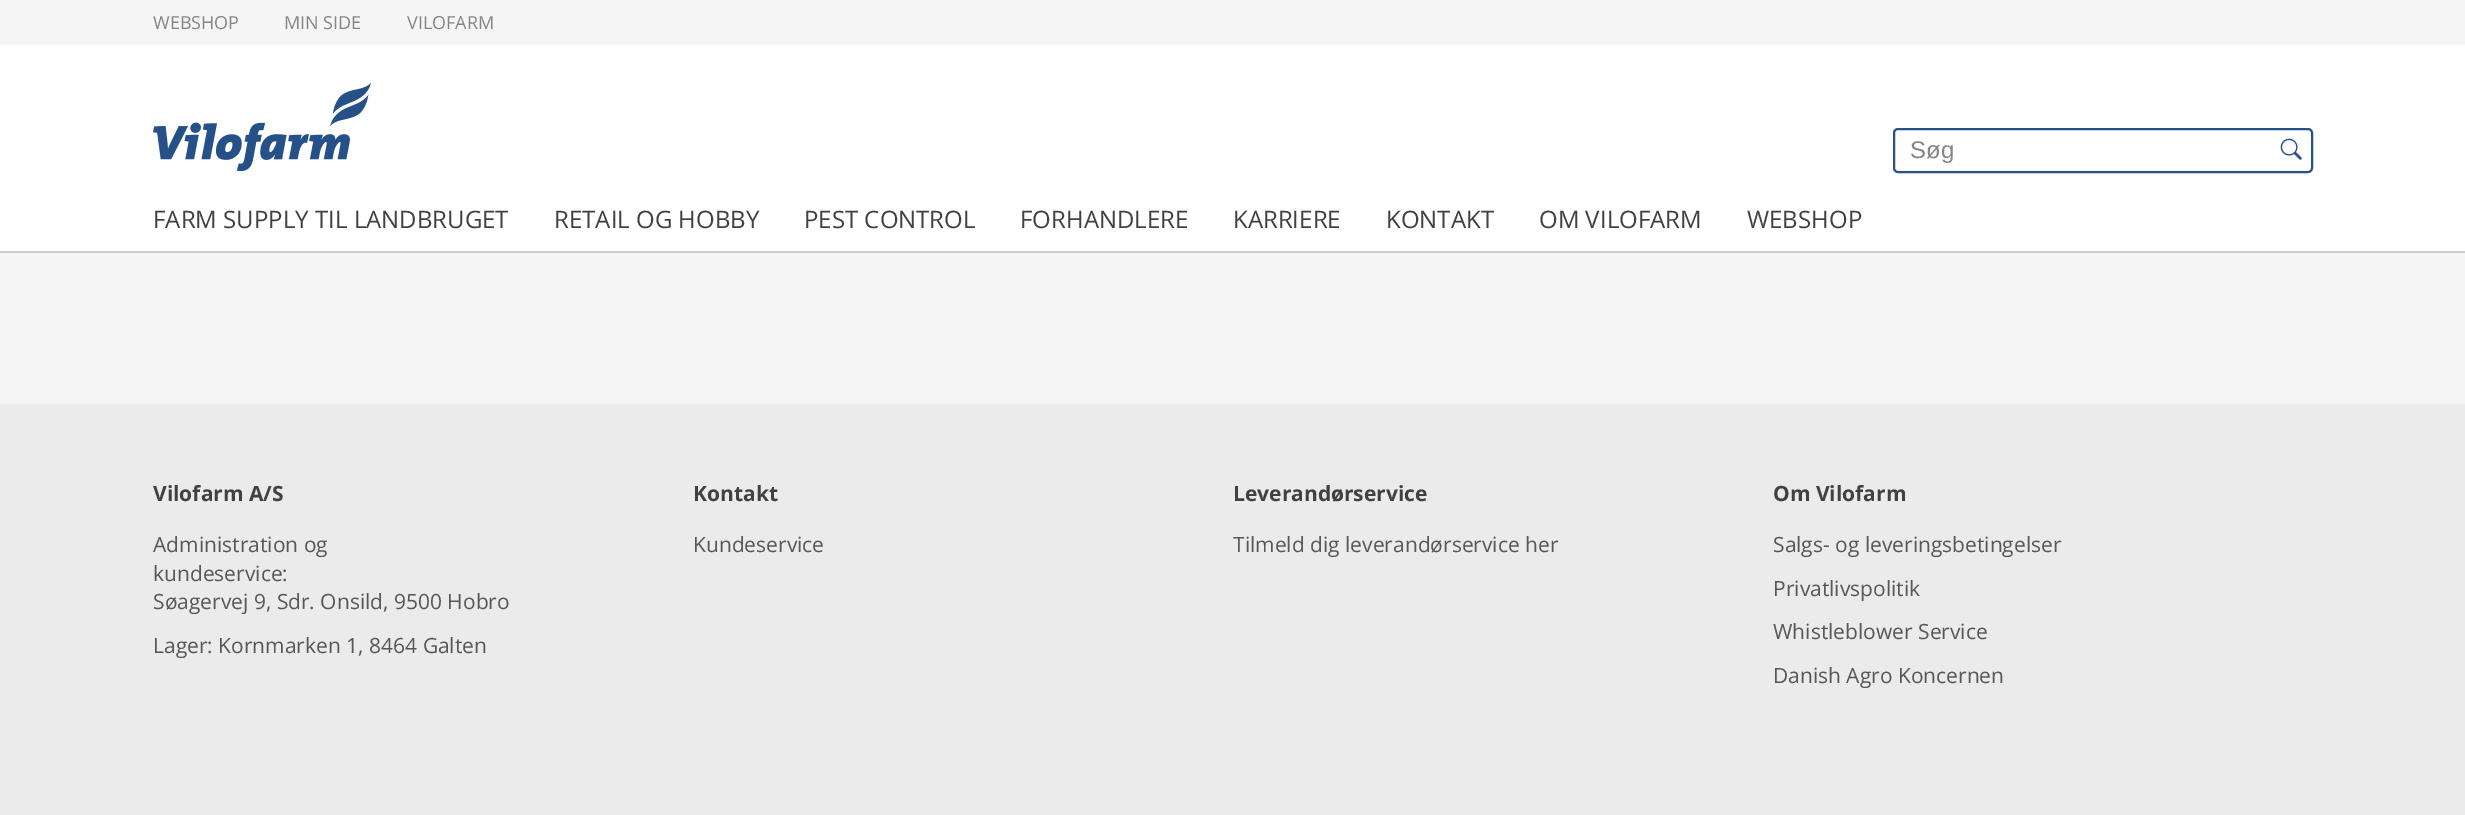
%!PS
<< /PageSize [2465 815] >> setpagedevice
/roundrect { 5 dict begin { /r /h /w /y /x } { exch def } forall
  x r add y moveto x w add y 2 copy h add r arct x w add y h add x 1 index r arct
  x y h add x y r arct x y 2 copy exch w add exch r arct closepath end } def
/picture { 5 dict begin { /h /w /y /x /name } { exch def } forall
  gsave x y translate w h scale
  w h 8 [w 0 0 h 0 0] name (r) file false 3 colorimage grestore end } def
0 815 translate 1 -1 scale
4 setmiterlimit
1 setgray
0 0 2465 815 rectfill
0.8 setgray
0 251 2465 2 rectfill
0.961 setgray
0 0 2465 45 rectfill
/OpenSans-Regular [18 0 0 -18 0 0] selectfont
0.522 setgray
153 29 moveto (WEBSHOP) show
284 29 moveto (MIN SIDE) show
407 29 moveto (VILOFARM) show
(img1.rgb) 153 83 218 89 picture
0.149 0.318 0.537 setrgbcolor
2 setlinewidth
1894 129 418 43 4 roundrect stroke
/LiberationSans-Regular [24 0 0 -24 0 0] selectfont
0.522 setgray
1910 158 moveto (Søg) show
(img2.rgb) 2280 138 22 22 picture
/OpenSans-Regular [24 0 0 -24 0 0] selectfont
0.255 0.255 0.259 setrgbcolor
153 228 moveto (FARM SUPPLY TIL LANDBRUGET) show
554 228 moveto (RETAIL OG HOBBY) show
804 228 moveto (PEST CONTROL) show
1020 228 moveto (FORHANDLERE) show
1233 228 moveto (KARRIERE) show
1386 228 moveto (KONTAKT) show
1539 228 moveto (OM VILOFARM) show
1747 228 moveto (WEBSHOP) show
0.961 setgray
0 253 2465 151 rectfill
0.922 setgray
0 404 2465 411 rectfill
/OpenSans-Bold [21 0 0 -21 0 0] selectfont
0.255 0.255 0.259 setrgbcolor
153 501 moveto (Vilofarm A/S) show
/OpenSans-Regular [21 0 0 -21 0 0] selectfont
0.341 setgray
153 552 moveto (Administration og) show
153 581 moveto (kundeservice:) show
153 609 moveto (Søagervej 9, Sdr. Onsild, 9500 Hobro) show
153 653 moveto (Lager: Kornmarken 1, 8464 Galten) show
/OpenSans-Bold [21 0 0 -21 0 0] selectfont
0.255 0.255 0.259 setrgbcolor
693 501 moveto (Kontakt) show
/OpenSans-Regular [21 0 0 -21 0 0] selectfont
0.341 setgray
693 552 moveto (Kundeservice) show
/OpenSans-Bold [21 0 0 -21 0 0] selectfont
0.255 0.255 0.259 setrgbcolor
1233 501 moveto (Leverandørservice) show
/OpenSans-Regular [21 0 0 -21 0 0] selectfont
0.341 setgray
1233 552 moveto (Tilmeld dig leverandørservice her) show
/OpenSans-Bold [21 0 0 -21 0 0] selectfont
0.255 0.255 0.259 setrgbcolor
1773 501 moveto (Om Vilofarm) show
/OpenSans-Regular [21 0 0 -21 0 0] selectfont
0.341 setgray
1773 552 moveto (Salgs- og leveringsbetingelser) show
1773 596 moveto (Privatlivspolitik) show
1773 639 moveto (Whistleblower Service) show
1773 683 moveto (Danish Agro Koncernen) show
showpage
